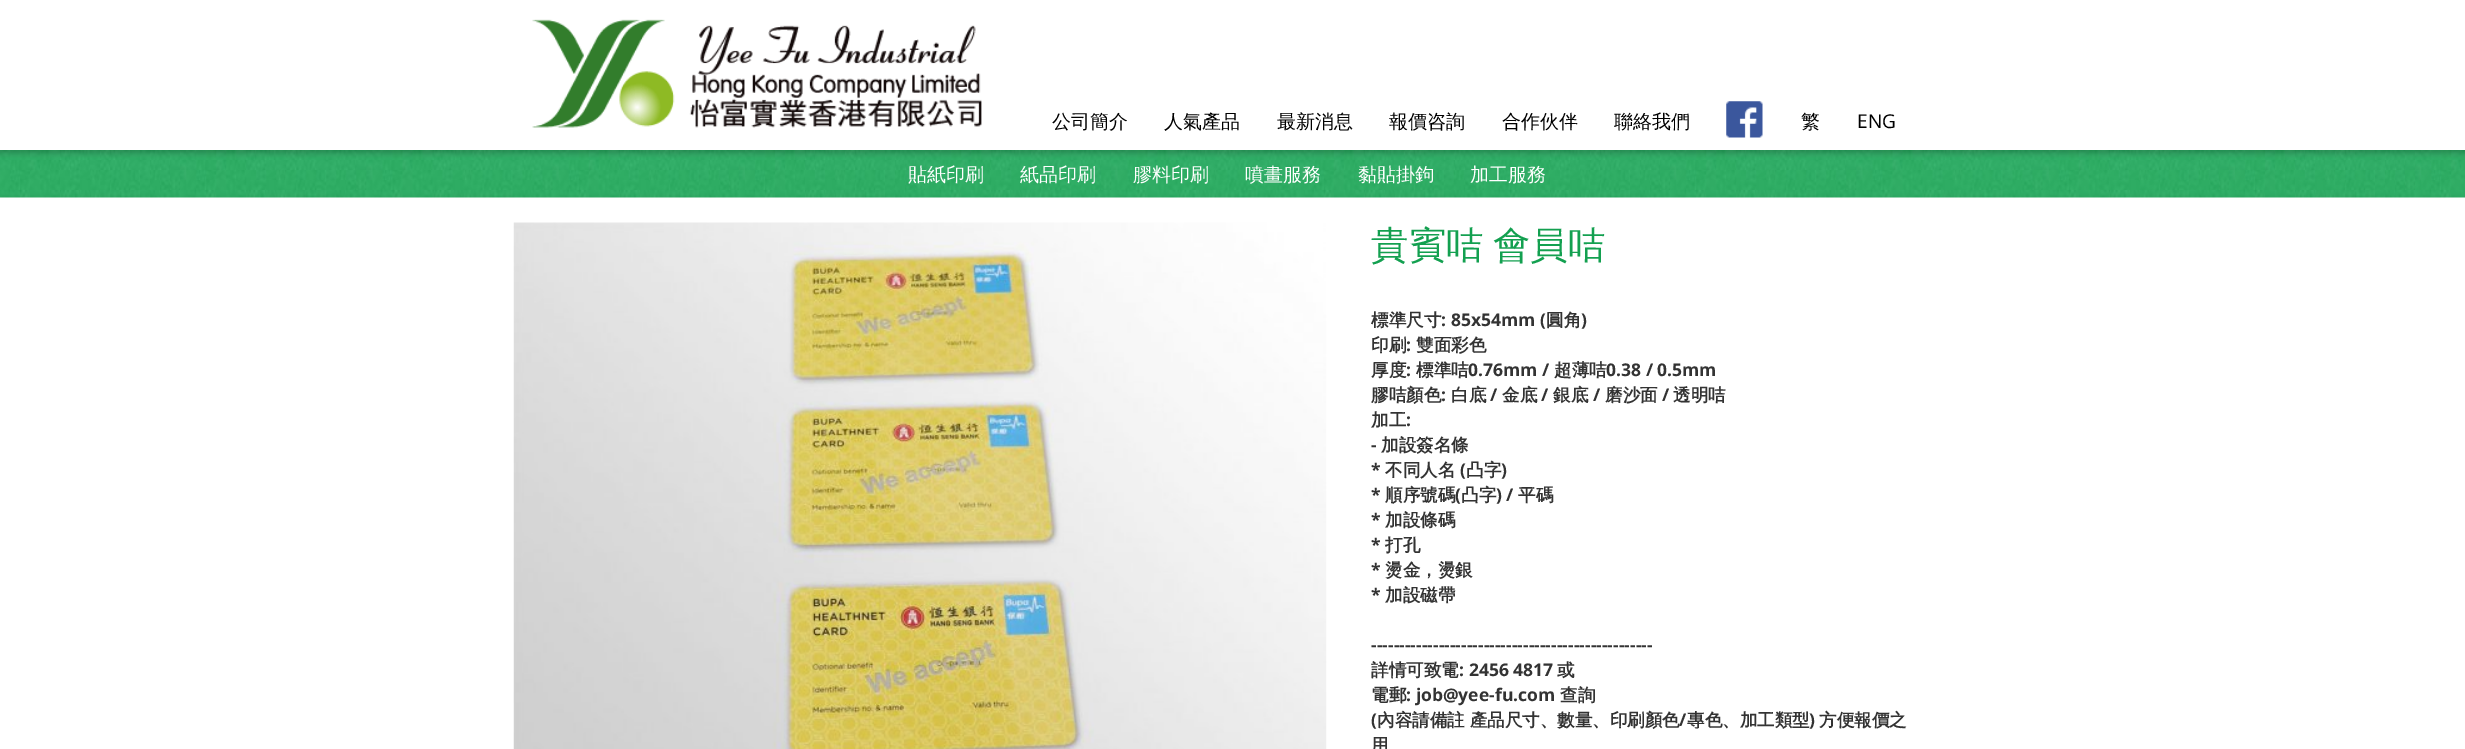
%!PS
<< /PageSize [2465 749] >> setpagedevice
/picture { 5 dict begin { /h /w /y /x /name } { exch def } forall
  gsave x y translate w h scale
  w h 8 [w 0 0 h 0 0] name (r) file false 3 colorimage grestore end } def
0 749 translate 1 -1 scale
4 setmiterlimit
1 setgray
0 0 2465 749 rectfill
(img1.rgb) 532 19 450 109 picture
/WenQuanYiZenHei-Medium [19 0 0 -19 0 0] selectfont
0 setgray
1052 128 moveto (公司簡介) show
1164 128 moveto (人氣產品) show
1277 128 moveto (最新消息) show
1389 128 moveto (報價咨詢) show
1502 128 moveto (合作伙伴) show
1614 128 moveto (聯絡我們) show
(img2.rgb) 1726 101 37 37 picture
1801 128 moveto (繁) show
/OpenSans-Regular [19 0 0 -19 0 0] selectfont
1857 128 moveto (ENG) show
(img3.rgb) 0 150 2465 48 picture
/WenQuanYiZenHei-Medium [19 0 0 -19 0 0] selectfont
1 setgray
908 181 moveto (貼紙印刷) show
1020 181 moveto (紙品印刷) show
1133 181 moveto (膠料印刷) show
1245 181 moveto (噴畫服務) show
1358 181 moveto (黏貼掛鉤) show
1470 181 moveto (加工服務) show
(img4.rgb) 513 222 814 527 picture
/WenQuanYiZenHei-Medium [37.5 0 0 -37.5 0 0] selectfont
0.075 0.627 0.314 setrgbcolor
1371 258 moveto -2 0 32 (貴賓咭 會員咭) widthshow
/WenQuanYiZenHei-Bold [17.5 0 0 -17.5 0 0] selectfont
0.2 setgray
1371 326 moveto (標準尺寸) show
/OpenSans-Bold [17.5 0 0 -17.5 0 0] selectfont
1441 326 moveto (: 85x54mm \() show
/WenQuanYiZenHei-Bold [17.5 0 0 -17.5 0 0] selectfont
1546 326 moveto (圓角) show
/OpenSans-Bold [17.5 0 0 -17.5 0 0] selectfont
1581 326 moveto (\)) show
/WenQuanYiZenHei-Bold [17.5 0 0 -17.5 0 0] selectfont
1371 351 moveto (印刷) show
/OpenSans-Bold [17.5 0 0 -17.5 0 0] selectfont
1406 351 moveto (:) show
/WenQuanYiZenHei-Bold [17.5 0 0 -17.5 0 0] selectfont
1416 351 moveto (雙面彩色) show
1371 376 moveto (厚度) show
/OpenSans-Bold [17.5 0 0 -17.5 0 0] selectfont
1406 376 moveto (:) show
/WenQuanYiZenHei-Bold [17.5 0 0 -17.5 0 0] selectfont
1416 376 moveto (標準咭) show
/OpenSans-Bold [17.5 0 0 -17.5 0 0] selectfont
1468 376 moveto (0.76mm /) show
/WenQuanYiZenHei-Bold [17.5 0 0 -17.5 0 0] selectfont
1554 376 moveto (超薄咭) show
/OpenSans-Bold [17.5 0 0 -17.5 0 0] selectfont
1606 376 moveto (0.38 / 0.5mm) show
/WenQuanYiZenHei-Bold [17.5 0 0 -17.5 0 0] selectfont
1371 401 moveto (膠咭顏色) show
/OpenSans-Bold [17.5 0 0 -17.5 0 0] selectfont
1441 401 moveto (:) show
/WenQuanYiZenHei-Bold [17.5 0 0 -17.5 0 0] selectfont
1451 401 moveto (白底) show
/OpenSans-Bold [17.5 0 0 -17.5 0 0] selectfont
1490 401 moveto (/) show
/WenQuanYiZenHei-Bold [17.5 0 0 -17.5 0 0] selectfont
1502 401 moveto (金底) show
/OpenSans-Bold [17.5 0 0 -17.5 0 0] selectfont
1541 401 moveto (/) show
/WenQuanYiZenHei-Bold [17.5 0 0 -17.5 0 0] selectfont
1553 401 moveto (銀底) show
/OpenSans-Bold [17.5 0 0 -17.5 0 0] selectfont
1593 401 moveto (/) show
/WenQuanYiZenHei-Bold [17.5 0 0 -17.5 0 0] selectfont
1605 401 moveto (磨沙面) show
/OpenSans-Bold [17.5 0 0 -17.5 0 0] selectfont
1662 401 moveto (/) show
/WenQuanYiZenHei-Bold [17.5 0 0 -17.5 0 0] selectfont
1673 401 moveto (透明咭) show
1371 426 moveto (加工) show
/OpenSans-Bold [17.5 0 0 -17.5 0 0] selectfont
1406 426 moveto (:) show
1371 451 moveto (-) show
/WenQuanYiZenHei-Bold [17.5 0 0 -17.5 0 0] selectfont
1381 451 moveto (加設簽名條) show
/OpenSans-Bold [17.5 0 0 -17.5 0 0] selectfont
1371 476 moveto (*) show
/WenQuanYiZenHei-Bold [17.5 0 0 -17.5 0 0] selectfont
1385 476 moveto (不同人名) show
/OpenSans-Bold [17.5 0 0 -17.5 0 0] selectfont
1460 476 moveto (\() show
/WenQuanYiZenHei-Bold [17.5 0 0 -17.5 0 0] selectfont
1466 476 moveto (凸字) show
/OpenSans-Bold [17.5 0 0 -17.5 0 0] selectfont
1501 476 moveto (\)) show
1371 501 moveto (*) show
/WenQuanYiZenHei-Bold [17.5 0 0 -17.5 0 0] selectfont
1385 501 moveto (順序號碼) show
/OpenSans-Bold [17.5 0 0 -17.5 0 0] selectfont
1455 501 moveto (\() show
/WenQuanYiZenHei-Bold [17.5 0 0 -17.5 0 0] selectfont
1461 501 moveto (凸字) show
/OpenSans-Bold [17.5 0 0 -17.5 0 0] selectfont
1496 501 moveto (\) /) show
/WenQuanYiZenHei-Bold [17.5 0 0 -17.5 0 0] selectfont
1518 501 moveto (平碼) show
/OpenSans-Bold [17.5 0 0 -17.5 0 0] selectfont
1371 526 moveto (*) show
/WenQuanYiZenHei-Bold [17.5 0 0 -17.5 0 0] selectfont
1385 526 moveto (加設條碼) show
/OpenSans-Bold [17.5 0 0 -17.5 0 0] selectfont
1371 551 moveto (*) show
/WenQuanYiZenHei-Bold [17.5 0 0 -17.5 0 0] selectfont
1385 551 moveto (打孔) show
/OpenSans-Bold [17.5 0 0 -17.5 0 0] selectfont
1371 576 moveto (*) show
/WenQuanYiZenHei-Bold [17.5 0 0 -17.5 0 0] selectfont
1385 576 moveto (燙金，燙銀) show
/OpenSans-Bold [17.5 0 0 -17.5 0 0] selectfont
1371 601 moveto (*) show
/WenQuanYiZenHei-Bold [17.5 0 0 -17.5 0 0] selectfont
1385 601 moveto (加設磁帶) show
/OpenSans-Bold [17.5 0 0 -17.5 0 0] selectfont
1371 651 moveto (--------------------------------------------------) show
/WenQuanYiZenHei-Bold [17.5 0 0 -17.5 0 0] selectfont
1371 676 moveto (詳情可致電) show
/OpenSans-Bold [17.5 0 0 -17.5 0 0] selectfont
1459 676 moveto (: 2456 4817) show
/WenQuanYiZenHei-Bold [17.5 0 0 -17.5 0 0] selectfont
1557 676 moveto (或) show
1371 701 moveto (電郵) show
/OpenSans-Bold [17.5 0 0 -17.5 0 0] selectfont
1406 701 moveto (: job@yee-fu.com) show
/WenQuanYiZenHei-Bold [17.5 0 0 -17.5 0 0] selectfont
1560 701 moveto (查詢) show
/OpenSans-Bold [17.5 0 0 -17.5 0 0] selectfont
1371 726 moveto (\() show
/WenQuanYiZenHei-Bold [17.5 0 0 -17.5 0 0] selectfont
1377 726 moveto (內容請備註 產品尺寸、數量、印刷顏色) show
/OpenSans-Bold [17.5 0 0 -17.5 0 0] selectfont
1679 726 moveto (/) show
/WenQuanYiZenHei-Bold [17.5 0 0 -17.5 0 0] selectfont
1687 726 moveto (專色、加工類型) show
/OpenSans-Bold [17.5 0 0 -17.5 0 0] selectfont
1809 726 moveto (\)) show
/WenQuanYiZenHei-Bold [17.5 0 0 -17.5 0 0] selectfont
1819 726 moveto (方便報價之) show
1371 751 moveto (用) show
showpage
